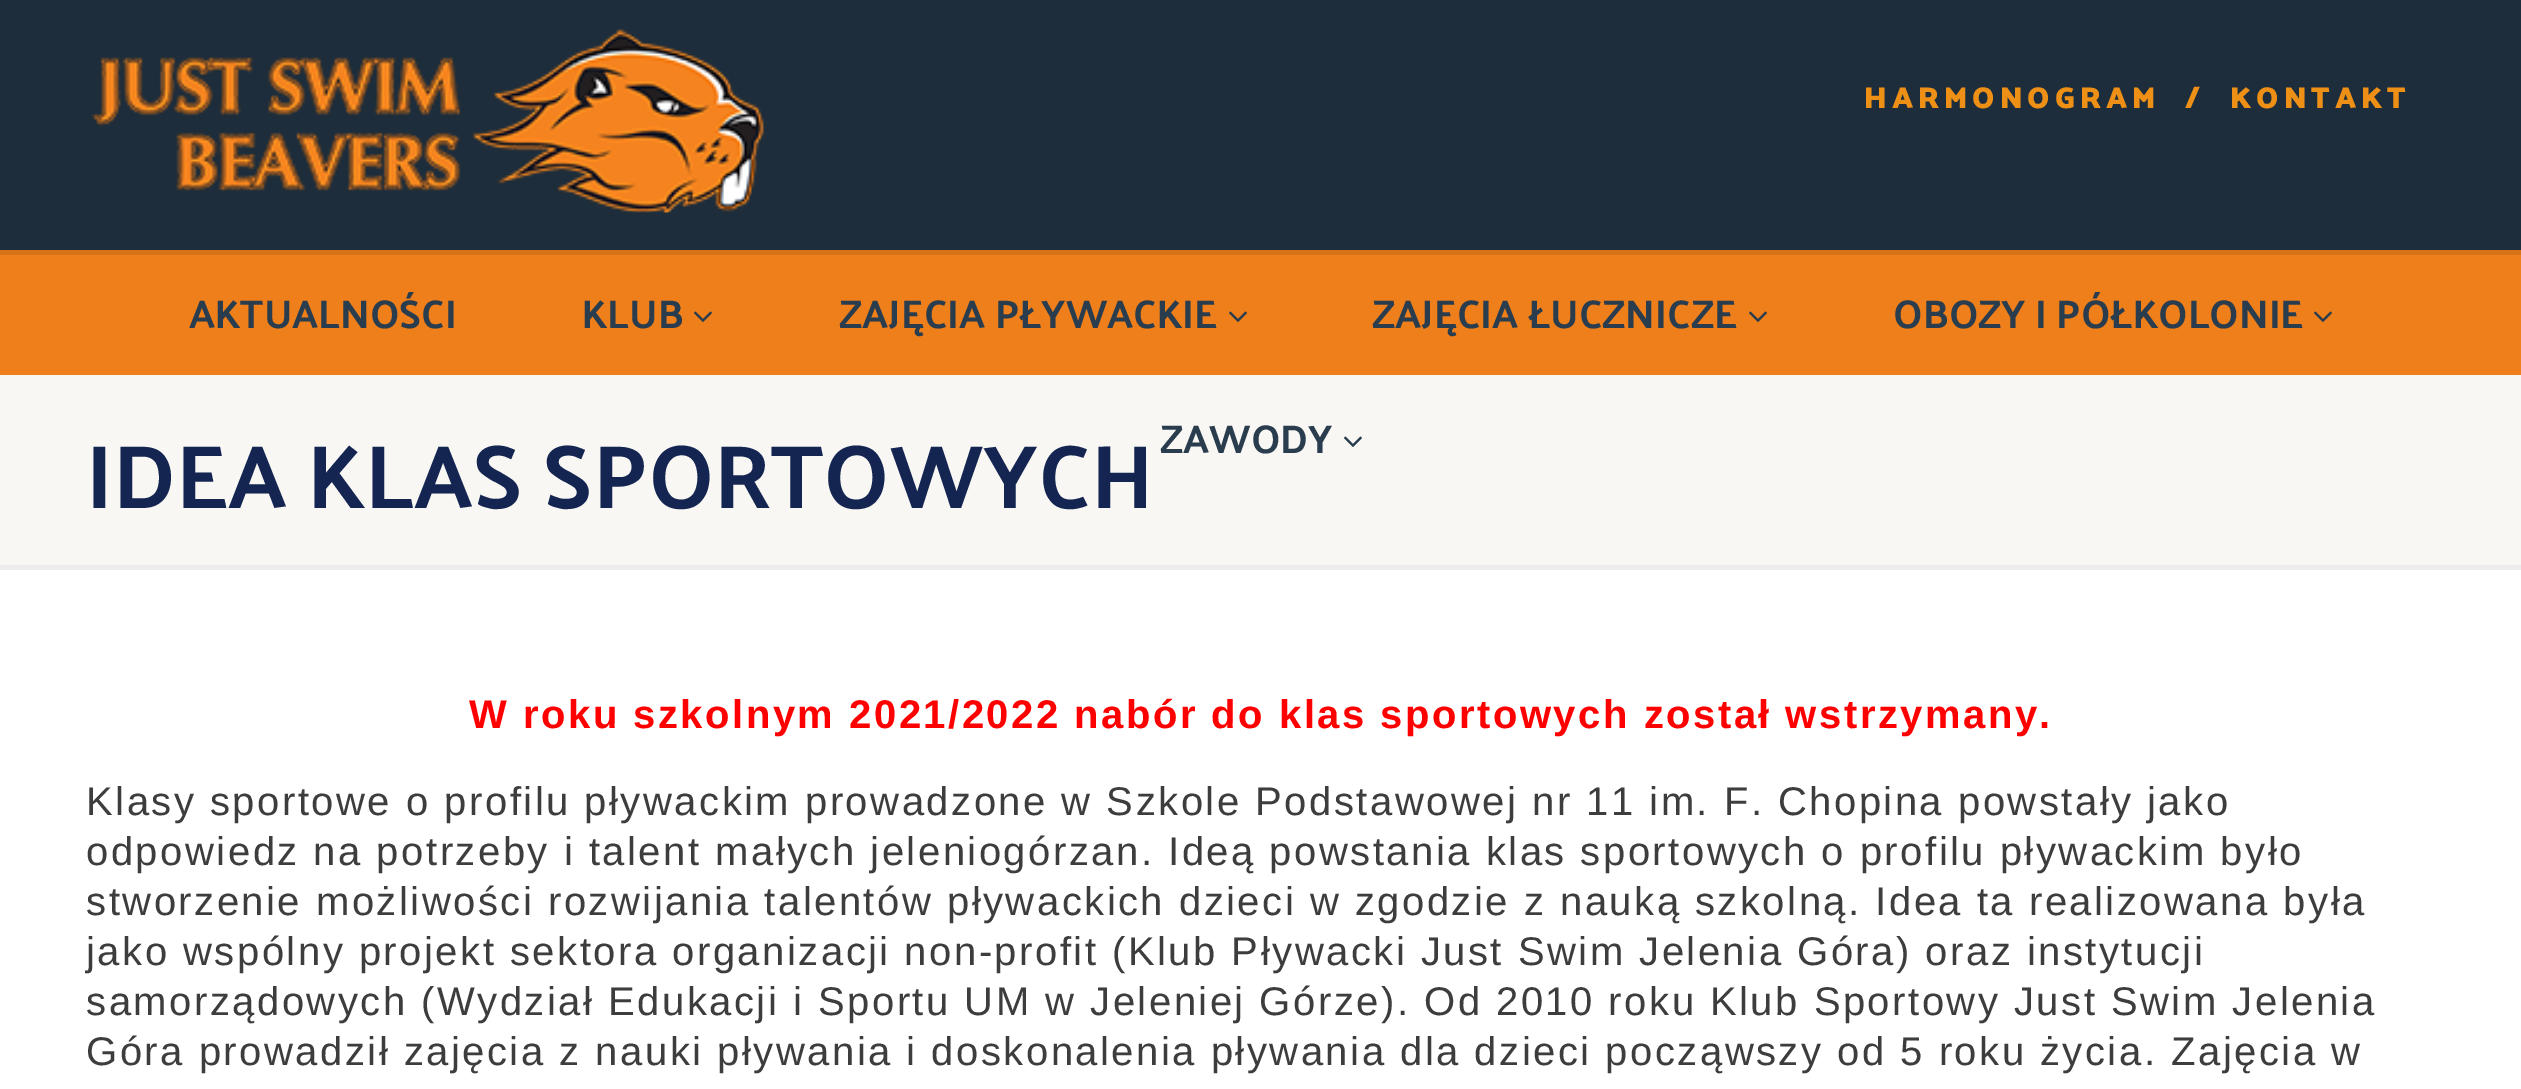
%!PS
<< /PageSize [2521 1089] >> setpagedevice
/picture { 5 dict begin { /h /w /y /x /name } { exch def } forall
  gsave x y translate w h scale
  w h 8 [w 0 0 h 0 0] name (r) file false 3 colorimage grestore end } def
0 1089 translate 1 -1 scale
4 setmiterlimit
1 setgray
0 0 2521 1089 rectfill
0.843 0.447 0.09 setrgbcolor
newpath 0 250 moveto 0 255 lineto 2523 255 lineto 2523 5 lineto 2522 5 lineto 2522 250 lineto closepath fill
0.114 0.176 0.231 setrgbcolor
0 0 2521 250 rectfill
(img1.rgb) 91 29 673 184 picture
/PalanquinDark-Bold [30 0 0 -30 0 0] selectfont
0.937 0.565 0.086 setrgbcolor
1864 108 moveto 5 0 (HARMONOGRAM) ashow
2185 108 moveto 5 0 (/) ashow
2230 108 moveto 5 0 (KONTAKT) ashow
0.937 0.498 0.102 setrgbcolor
0 255 2521 120 rectfill
/PalanquinDark-Regular [40 0 0 -40 0 0] selectfont
0.165 0.239 0.31 setrgbcolor
189 328 moveto (AKTUALNOŚCI) show
582 328 moveto (KLUB) show
(img2.rgb) 694 311 18 11 picture
839 328 moveto (ZAJĘCIA PŁYWACKIE) show
(img2.rgb) 1229 311 18 11 picture
1372 328 moveto (ZAJĘCIA ŁUCZNICZE) show
(img2.rgb) 1749 311 18 11 picture
1893 328 moveto (OBOZY I PÓŁKOLONIE) show
(img2.rgb) 2314 311 18 11 picture
0.973 0.969 0.953 setrgbcolor
0 375 2521 190 rectfill
0.165 0.239 0.31 setrgbcolor
1160 453 moveto (ZAWODY) show
(img3.rgb) 1344 436 18 11 picture
0.929 setgray
newpath 0 565 moveto 0 570 lineto 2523 570 lineto 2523 380 lineto 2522 380 lineto 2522 565 lineto closepath fill
/PalanquinDark-Regular [90 0 0 -90 0 0] selectfont
0.078 0.145 0.318 setrgbcolor
86 508 moveto (IDEA KLAS SPORTOWYCH) show
/LiberationSans-Bold [40 0 0 -40 0 0] selectfont
1 0 0 setrgbcolor
469 728 moveto 2.5 0 (W roku szkolnym 2021/2022 nabór do klas sportowych został wstrzymany.) ashow
/LiberationSans-Regular [40 0 0 -40 0 0] selectfont
0.239 setgray
86 815 moveto 2.5 0 (Klasy sportowe o profilu pływackim prowadzone w Szkole Podstawowej nr 11 im. F. Chopina powstały jako) ashow
86 865 moveto 2.5 0 (odpowiedz na potrzeby i talent małych jeleniogórzan. Ideą powstania klas sportowych o profilu pływackim było) ashow
86 915 moveto 2.5 0 (stworzenie możliwości rozwijania talentów pływackich dzieci w zgodzie z nauką szkolną. Idea ta realizowana była) ashow
86 965 moveto 2.5 0 (jako wspólny projekt sektora organizacji non-profit \(Klub Pływacki Just Swim Jelenia Góra\) oraz instytucji) ashow
86 1015 moveto 2.5 0 (samorządowych \(Wydział Edukacji i Sportu UM w Jeleniej Górze\). Od 2010 roku Klub Sportowy Just Swim Jelenia) ashow
86 1065 moveto 2.5 0 (Góra prowadził zajęcia z nauki pływania i doskonalenia pływania dla dzieci począwszy od 5 roku życia. Zajęcia w) ashow
showpage
